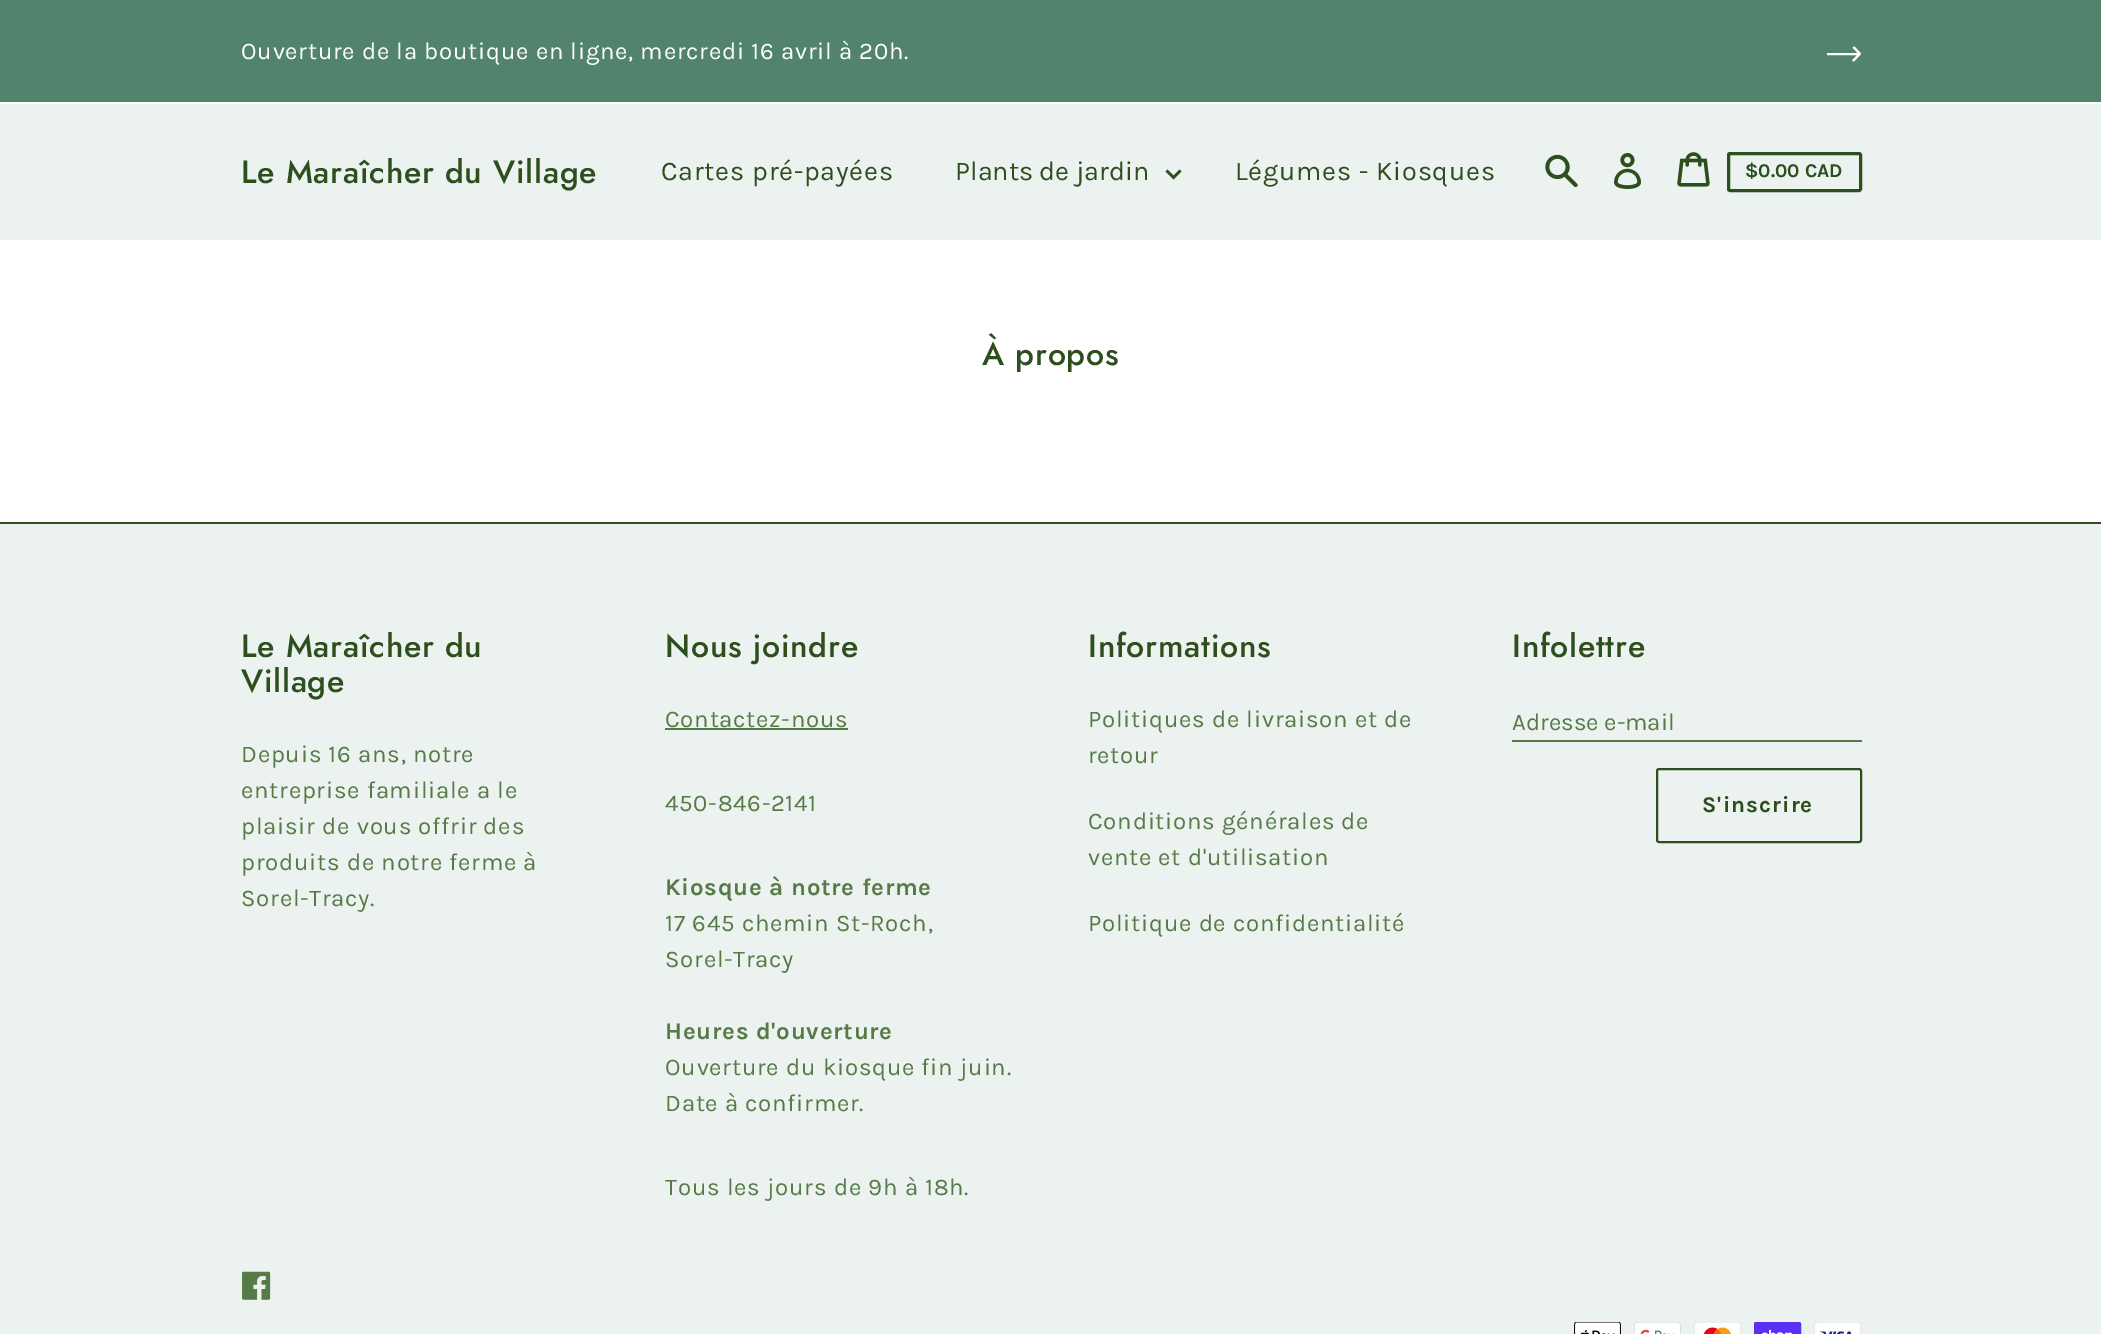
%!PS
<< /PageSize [2101 1334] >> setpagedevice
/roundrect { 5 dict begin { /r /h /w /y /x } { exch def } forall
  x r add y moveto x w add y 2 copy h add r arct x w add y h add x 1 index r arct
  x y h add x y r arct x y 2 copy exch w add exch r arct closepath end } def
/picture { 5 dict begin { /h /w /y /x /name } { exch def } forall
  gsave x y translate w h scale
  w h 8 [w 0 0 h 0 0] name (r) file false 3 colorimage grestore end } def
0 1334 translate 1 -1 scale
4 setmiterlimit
1 setgray
0 0 2101 1334 rectfill
0.318 0.514 0.427 setrgbcolor
0 0 2101 102 rectfill
/Karla-Regular [24 0 0 -24 0 0] selectfont
1 setgray
241 59 moveto 0.75 0 (Ouverture de la boutique en ligne, mercredi 16 avril à 20h.) ashow
2.1 setlinewidth
newpath 1860 53.5 moveto 1853 61 lineto 1853.5 47 moveto 1860 54 lineto 1860 54 moveto 1827 54 lineto stroke
0.922 0.949 0.937 setrgbcolor
0 104 2101 136 rectfill
/Jost-Medium [32.1 0 0 -32.1 0 0] selectfont
0.176 0.31 0.118 setrgbcolor
241 183 moveto 0.75 0 (Le Maraîcher du Village) ashow
/Karla-Regular [27 0 0 -27 0 0] selectfont
661 180 moveto 0.75 0 (Cartes pré-payées) ashow
955 180 moveto (Plants de jardin) show
2.7 setlinewidth
newpath 1166.5 170.5 moveto 1173.5 177.5 lineto 1180.5 170.5 lineto stroke
1235 180 moveto 0.75 0 (Légumes - Kiosques) ashow
(img1.rgb) 1545 154 33 34 picture
(img2.rgb) 1614 153 27 36 picture
(img3.rgb) 1677 152 33 35 picture
3 setlinewidth
1728.5 153.5 132 37 1.5 roundrect stroke
/Karla-Bold [19.5 0 0 -19.5 0 0] selectfont
1745 177 moveto ($0.00 CAD) show
/Jost-Medium [32.1 0 0 -32.1 0 0] selectfont
982 365 moveto 0.75 0 (À propos) ashow
0.922 0.949 0.937 setrgbcolor
0 524 2101 810 rectfill
0.176 0.31 0.118 setrgbcolor
0 522 2101 2 rectfill
241 657 moveto 0.75 0 (Le Maraîcher du) ashow
241 692 moveto 0.75 0 (Village) ashow
/Karla-Regular [24 0 0 -24 0 0] selectfont
0.341 0.482 0.275 setrgbcolor
241 762 moveto 0.75 0 (Depuis 16 ans, notre) ashow
241 798 moveto 0.75 0 (entreprise familiale a le) ashow
241 834 moveto 0.75 0 (plaisir de vous offrir des) ashow
241 870 moveto 0.75 0 (produits de notre ferme à) ashow
241 906 moveto 0.75 0 (Sorel-Tracy.) ashow
/Jost-Medium [32.1 0 0 -32.1 0 0] selectfont
0.176 0.31 0.118 setrgbcolor
665 657 moveto 0.75 0 (Nous joindre) ashow
/Karla-Regular [24 0 0 -24 0 0] selectfont
0.341 0.482 0.275 setrgbcolor
665 727 moveto 0.75 0 (Contactez-nous) ashow
665 728 183 2 rectfill
665 811 moveto 0.75 0 (450-846-2141) ashow
/Karla-Bold [24 0 0 -24 0 0] selectfont
665 895 moveto 0.75 0 (Kiosque à notre ferme) ashow
/Karla-Regular [24 0 0 -24 0 0] selectfont
665 931 moveto 0.75 0 (17 645 chemin St-Roch,) ashow
665 967 moveto 0.75 0 (Sorel-Tracy) ashow
/Karla-Bold [24 0 0 -24 0 0] selectfont
665 1039 moveto 0.75 0 (Heures d'ouverture) ashow
/Karla-Regular [24 0 0 -24 0 0] selectfont
665 1075 moveto 0.75 0 (Ouverture du kiosque fin juin.) ashow
665 1111 moveto 0.75 0 (Date à confirmer.) ashow
665 1195 moveto 0.75 0 (Tous les jours de 9h à 18h.) ashow
/Jost-Medium [32.1 0 0 -32.1 0 0] selectfont
0.176 0.31 0.118 setrgbcolor
1088 657 moveto 0.75 0 (Informations) ashow
/Karla-Regular [24 0 0 -24 0 0] selectfont
0.341 0.482 0.275 setrgbcolor
1088 727 moveto 0.75 0 (Politiques de livraison et de) ashow
1088 763 moveto 0.75 0 (retour) ashow
1088 829 moveto 0.75 0 (Conditions générales de) ashow
1088 865 moveto 0.75 0 (vente et d'utilisation) ashow
1088 931 moveto 0.75 0 (Politique de confidentialité) ashow
/Jost-Medium [32.1 0 0 -32.1 0 0] selectfont
0.176 0.31 0.118 setrgbcolor
1512 657 moveto 0.75 0 (Infolettre) ashow
/Karla-Regular [24 0 0 -24 0 0] selectfont
0.341 0.482 0.275 setrgbcolor
1512 730 moveto (Adresse e-mail) show
1512 740 350 2 rectfill
0.176 0.31 0.118 setrgbcolor
2 setlinewidth
1657 769 204 73 2 roundrect stroke
/Karla-Bold [22.5 0 0 -22.5 0 0] selectfont
1702 812 moveto 1.1 0 (S'inscrire) ashow
(img4.rgb) 242 1271 29 29 picture
(img5.rgb) 1574 1322 47 12 picture
(img6.rgb) 1634 1322 47 12 picture
(img7.rgb) 1694 1322 47 12 picture
(img8.rgb) 1754 1322 48 12 picture
(img9.rgb) 1814 1322 47 12 picture
showpage
